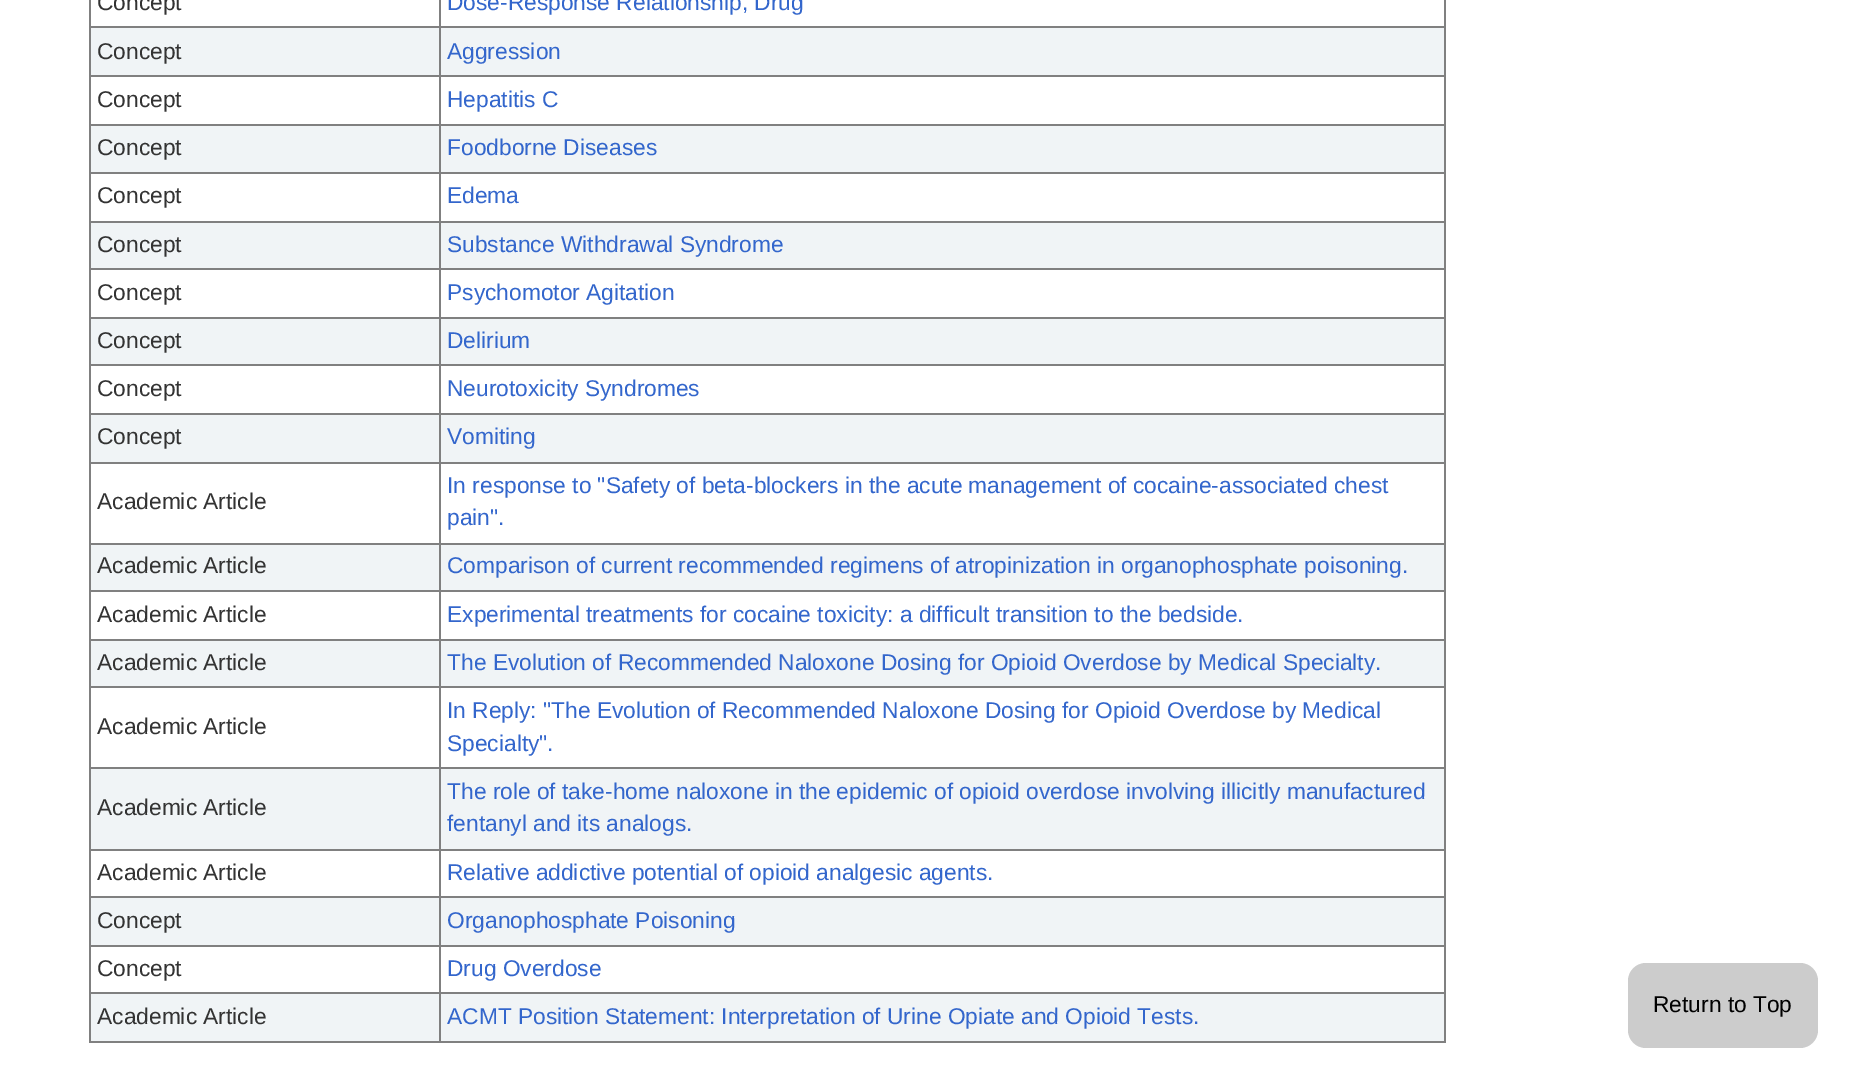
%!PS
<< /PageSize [1870 1082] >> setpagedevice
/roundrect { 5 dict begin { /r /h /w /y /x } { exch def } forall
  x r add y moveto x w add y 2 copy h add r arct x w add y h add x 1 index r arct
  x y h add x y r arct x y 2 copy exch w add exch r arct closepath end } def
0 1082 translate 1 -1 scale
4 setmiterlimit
1 setgray
0 0 1870 1082 rectfill
/LiberationSans-Regular [22.75 0 0 -22.75 0 0] selectfont
0.2 setgray
97 10 moveto (Concept) show
0.502 setgray
439 26 1007 2 rectfill
0.941 0.957 0.965 setrgbcolor
91 28 1353 47 rectfill
0.502 setgray
439 75 1007 2 rectfill
439 124 1007 2 rectfill
0.941 0.957 0.965 setrgbcolor
91 126 1353 46 rectfill
0.502 setgray
439 172 1007 2 rectfill
439 221 1007 2 rectfill
0.941 0.957 0.965 setrgbcolor
91 223 1353 45 rectfill
0.502 setgray
439 268 1007 2 rectfill
439 317 1007 2 rectfill
0.941 0.957 0.965 setrgbcolor
91 319 1353 45 rectfill
0.502 setgray
439 364 1007 2 rectfill
439 413 1007 2 rectfill
0.941 0.957 0.965 setrgbcolor
91 415 1353 47 rectfill
0.502 setgray
439 462 1007 2 rectfill
439 543 1007 2 rectfill
0.941 0.957 0.965 setrgbcolor
91 545 1353 45 rectfill
0.502 setgray
439 590 1007 2 rectfill
439 639 1007 2 rectfill
0.941 0.957 0.965 setrgbcolor
91 641 1353 45 rectfill
0.502 setgray
439 686 1007 2 rectfill
439 767 1007 2 rectfill
0.941 0.957 0.965 setrgbcolor
91 769 1353 80 rectfill
0.502 setgray
439 849 1007 2 rectfill
439 896 1007 2 rectfill
0.941 0.957 0.965 setrgbcolor
91 898 1353 47 rectfill
0.502 setgray
439 945 1007 2 rectfill
439 992 1007 2 rectfill
0.941 0.957 0.965 setrgbcolor
91 994 1353 47 rectfill
0.502 setgray
1444 992 2 51 rectfill
439 1041 1007 2 rectfill
439 992 2 51 rectfill
89 992 352 2 rectfill
439 945 2 49 rectfill
89 945 352 2 rectfill
439 896 2 51 rectfill
89 896 352 2 rectfill
439 849 2 49 rectfill
89 849 352 2 rectfill
439 767 2 84 rectfill
89 767 352 2 rectfill
439 686 2 82 rectfill
89 686 352 2 rectfill
439 639 2 49 rectfill
89 639 352 2 rectfill
439 590 2 51 rectfill
89 590 352 2 rectfill
439 543 2 49 rectfill
89 543 352 2 rectfill
439 462 2 82 rectfill
89 462 352 2 rectfill
439 413 2 51 rectfill
89 413 352 2 rectfill
439 364 2 51 rectfill
89 364 352 2 rectfill
439 317 2 49 rectfill
89 317 352 2 rectfill
439 268 2 51 rectfill
89 268 352 2 rectfill
439 221 2 49 rectfill
89 221 352 2 rectfill
439 172 2 50 rectfill
89 172 352 2 rectfill
439 124 2 49 rectfill
89 124 352 2 rectfill
439 75 2 51 rectfill
89 75 352 2 rectfill
439 26 2 51 rectfill
89 26 352 2 rectfill
439 0 2 28 rectfill
0.2 0.4 0.8 setrgbcolor
447 10 moveto (Dose-Response Relationship, Drug) show
0.502 setgray
89 1041 352 2 rectfill
89 992 2 51 rectfill
89 945 2 49 rectfill
89 896 2 51 rectfill
89 849 2 49 rectfill
89 767 2 84 rectfill
89 686 2 82 rectfill
89 639 2 49 rectfill
89 590 2 51 rectfill
89 543 2 49 rectfill
89 462 2 82 rectfill
89 413 2 51 rectfill
89 364 2 51 rectfill
89 317 2 49 rectfill
89 268 2 51 rectfill
89 221 2 49 rectfill
89 172 2 50 rectfill
89 124 2 49 rectfill
89 75 2 51 rectfill
89 0 2 77 rectfill
0.2 setgray
97 59 moveto (Concept) show
0.502 setgray
1444 945 2 49 rectfill
1444 896 2 51 rectfill
1444 849 2 49 rectfill
1444 767 2 84 rectfill
1444 686 2 82 rectfill
1444 639 2 49 rectfill
1444 590 2 51 rectfill
1444 543 2 49 rectfill
1444 462 2 82 rectfill
1444 413 2 51 rectfill
1444 364 2 51 rectfill
1444 317 2 49 rectfill
1444 268 2 51 rectfill
1444 221 2 49 rectfill
1444 172 2 50 rectfill
1444 124 2 49 rectfill
1444 75 2 51 rectfill
1444 0 2 77 rectfill
0.2 0.4 0.8 setrgbcolor
447 59 moveto (Aggression) show
0.2 setgray
97 107 moveto (Concept) show
0.2 0.4 0.8 setrgbcolor
447 107 moveto (Hepatitis C) show
0.2 setgray
97 155 moveto (Concept) show
0.2 0.4 0.8 setrgbcolor
447 155 moveto (Foodborne Diseases) show
0.2 setgray
97 203 moveto (Concept) show
0.2 0.4 0.8 setrgbcolor
447 203 moveto (Edema) show
0.2 setgray
97 252 moveto (Concept) show
0.2 0.4 0.8 setrgbcolor
447 252 moveto (Substance Withdrawal Syndrome) show
0.2 setgray
97 300 moveto (Concept) show
0.2 0.4 0.8 setrgbcolor
447 300 moveto (Psychomotor Agitation) show
0.2 setgray
97 348 moveto (Concept) show
0.2 0.4 0.8 setrgbcolor
447 348 moveto (Delirium) show
0.2 setgray
97 396 moveto (Concept) show
0.2 0.4 0.8 setrgbcolor
447 396 moveto (Neurotoxicity Syndromes) show
0.2 setgray
97 444 moveto (Concept) show
0.2 0.4 0.8 setrgbcolor
447 444 moveto (Vomiting) show
0.2 setgray
97 509 moveto (Academic Article) show
0.2 0.4 0.8 setrgbcolor
447 493 moveto (In response to "Safety of beta-blockers in the acute management of cocaine-associated chest) show
447 525 moveto (pain".) show
0.2 setgray
97 573 moveto (Academic Article) show
0.2 0.4 0.8 setrgbcolor
447 573 moveto (Comparison of current recommended regimens of atropinization in organophosphate poisoning.) show
0.2 setgray
97 622 moveto (Academic Article) show
0.2 0.4 0.8 setrgbcolor
447 622 moveto (Experimental treatments for cocaine toxicity: a difficult transition to the bedside.) show
0.2 setgray
97 670 moveto (Academic Article) show
0.2 0.4 0.8 setrgbcolor
447 670 moveto (The Evolution of Recommended Naloxone Dosing for Opioid Overdose by Medical Specialty.) show
0.2 setgray
97 734 moveto (Academic Article) show
0.2 0.4 0.8 setrgbcolor
447 718 moveto (In Reply: "The Evolution of Recommended Naloxone Dosing for Opioid Overdose by Medical) show
447 751 moveto (Specialty".) show
0.2 setgray
97 815 moveto (Academic Article) show
0.2 0.4 0.8 setrgbcolor
447 799 moveto (The role of take-home naloxone in the epidemic of opioid overdose involving illicitly manufactured) show
447 831 moveto (fentanyl and its analogs.) show
0.2 setgray
97 880 moveto (Academic Article) show
0.2 0.4 0.8 setrgbcolor
447 880 moveto (Relative addictive potential of opioid analgesic agents.) show
0.2 setgray
97 928 moveto (Concept) show
0.2 0.4 0.8 setrgbcolor
447 928 moveto (Organophosphate Poisoning) show
0.2 setgray
97 976 moveto (Concept) show
0.2 0.4 0.8 setrgbcolor
447 976 moveto (Drug Overdose) show
0.2 setgray
97 1024 moveto (Academic Article) show
0.2 0.4 0.8 setrgbcolor
447 1024 moveto (ACMT Position Statement: Interpretation of Urine Opiate and Opioid Tests.) show
0.8 setgray
1628 963 190 85 18 roundrect fill
0 setgray
1653 1012 moveto (Return to Top) show
showpage
